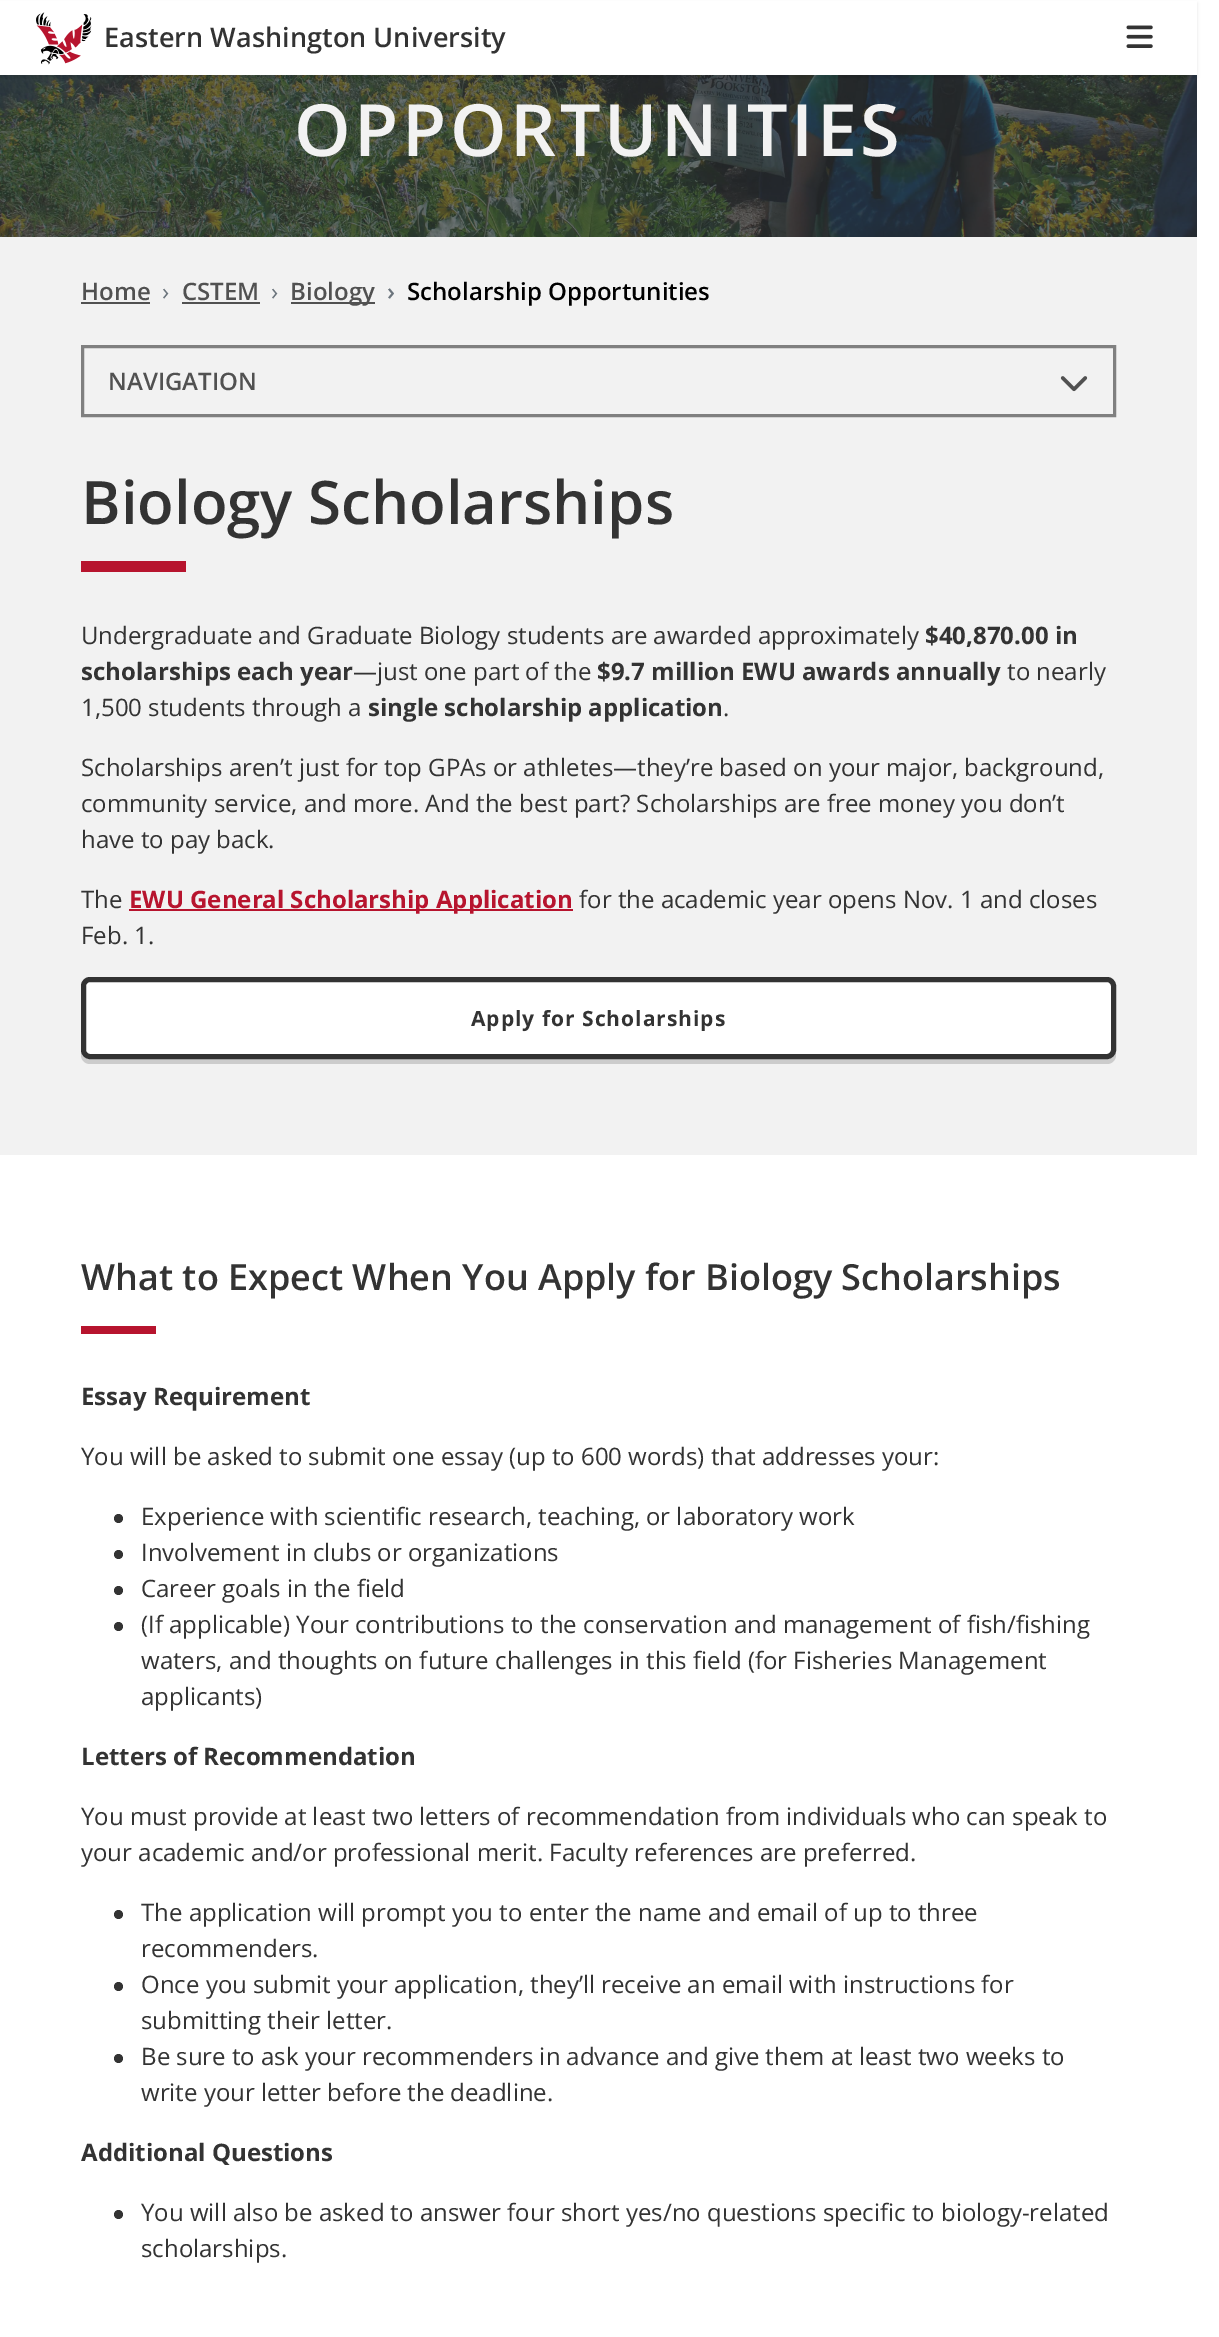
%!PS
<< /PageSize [1219 2337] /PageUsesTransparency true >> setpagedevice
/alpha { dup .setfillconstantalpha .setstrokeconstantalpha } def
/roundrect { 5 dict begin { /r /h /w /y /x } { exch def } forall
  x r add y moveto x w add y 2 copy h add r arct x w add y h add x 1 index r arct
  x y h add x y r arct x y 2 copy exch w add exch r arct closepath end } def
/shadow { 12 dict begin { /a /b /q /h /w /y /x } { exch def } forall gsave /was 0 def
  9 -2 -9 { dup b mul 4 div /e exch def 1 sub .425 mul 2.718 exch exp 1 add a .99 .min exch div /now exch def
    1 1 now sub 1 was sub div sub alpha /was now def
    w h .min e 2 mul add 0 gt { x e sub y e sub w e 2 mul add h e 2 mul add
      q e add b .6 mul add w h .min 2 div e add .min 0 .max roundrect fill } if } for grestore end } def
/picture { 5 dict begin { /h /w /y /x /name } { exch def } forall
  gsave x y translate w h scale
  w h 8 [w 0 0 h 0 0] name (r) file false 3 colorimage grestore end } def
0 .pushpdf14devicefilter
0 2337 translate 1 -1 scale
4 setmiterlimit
1 setgray
0 0 1219 2337 rectfill
(img3.rgb) 0 75 1197 162 picture
0 setgray
0 3 1197 75 0 1.5 0.1 shadow
1 setgray
0 1 1197 74 rectfill
(img1.rgb) 36 12 56 53 picture
/OpenSans-SemiBold [27.1 0 0 -27.1 0 0] selectfont
0.2 setgray
104 47 moveto (Eastern Washington University) show
(img2.rgb) 1126 25 27 23 picture
0.949 setgray
0 237 1197 918 rectfill
/OpenSans-SemiBold [72 0 0 -72 0 0] selectfont
294 156 moveto 3.6 0 (OPPORTUNITIES) ashow
/OpenSans-SemiBold [24 0 0 -24 0 0] selectfont
0.318 setgray
81 300 moveto (Home) show
81 302 69 2 rectfill
/OpenSans-Regular [24 0 0 -24 0 0] selectfont
0.424 0.459 0.49 setrgbcolor
162 300 moveto (›) show
/OpenSans-SemiBold [24 0 0 -24 0 0] selectfont
0.318 setgray
182 300 moveto (CSTEM) show
182 302 78 2 rectfill
/OpenSans-Regular [24 0 0 -24 0 0] selectfont
0.424 0.459 0.49 setrgbcolor
271 300 moveto (›) show
0.318 setgray
291 302 84 2 rectfill
/OpenSans-SemiBold [24 0 0 -24 0 0] selectfont
290 300 moveto (Biology) show
0.424 0.459 0.49 setrgbcolor
387 300 moveto (›) show
0 setgray
407 300 moveto (Scholarship Opportunities) show
0.502 setgray
3 setlinewidth
82.5 346.5 1032 69 rectstroke
0.318 setgray
108 390 moveto (NAVIGATION) show
(img4.rgb) 1060 376 28 16 picture
/OpenSans-SemiBold [60 0 0 -60 0 0] selectfont
0.2 setgray
81 524 moveto (Biology Scholarships) show
0.718 0.078 0.18 setrgbcolor
81 561 105 11 rectfill
/OpenSans-Regular [24 0 0 -24 0 0] selectfont
0.2 setgray
81 644 moveto (Undergraduate and Graduate Biology students are awarded approximately) show
/OpenSans-Bold [24 0 0 -24 0 0] selectfont
925 644 moveto ($40,870.00 in) show
81 680 moveto (scholarships each year) show
/OpenSans-Regular [24 0 0 -24 0 0] selectfont
353 680 moveto (—just one part of the) show
/OpenSans-Bold [24 0 0 -24 0 0] selectfont
597 680 moveto ($9.7 million EWU awards annually) show
/OpenSans-Regular [24 0 0 -24 0 0] selectfont
1007 680 moveto (to nearly) show
81 716 moveto (1,500 students through a) show
/OpenSans-Bold [24 0 0 -24 0 0] selectfont
368 716 moveto (single scholarship application) show
/OpenSans-Regular [24 0 0 -24 0 0] selectfont
723 716 moveto (.) show
81 776 moveto (Scholarships aren’t just for top GPAs or athletes—they’re based on your major, background,) show
81 812 moveto (community service, and more. And the best part? Scholarships are free money you don’t) show
81 848 moveto (have to pay back.) show
81 908 moveto (The) show
0.718 0.078 0.18 setrgbcolor
129 909 444 2 rectfill
/OpenSans-Bold [24 0 0 -24 0 0] selectfont
129 908 moveto (EWU General Scholarship Application) show
/OpenSans-Regular [24 0 0 -24 0 0] selectfont
0.2 setgray
579 908 moveto (for the academic year opens Nov. 1 and closes) show
81 944 moveto (Feb. 1.) show
0.8 setgray
newpath 81 1050 moveto 81 1055 lineto 81 1060 85 1064 90 1064 curveto 1107 1064 lineto 1112 1064 1116 1060 1116 1055 curveto 1116 1050 lineto 1116 1055 1112 1059 1107 1059 curveto 90 1059 lineto 85 1059 81 1055 81 1050 curveto closepath fill
1 setgray
83.5 979.5 1030 77 6.5 roundrect gsave fill grestore
0.2 setgray
5 setlinewidth
stroke
/OpenSans-Bold [21 0 0 -21 0 0] selectfont
471 1026 moveto 1 0 (Apply for Scholarships) ashow
/OpenSans-SemiBold [36 0 0 -36 0 0] selectfont
81 1290 moveto (What to Expect When You Apply for Biology Scholarships) show
0.718 0.078 0.18 setrgbcolor
81 1326 75 8 rectfill
/OpenSans-Bold [24 0 0 -24 0 0] selectfont
0.2 setgray
81 1405 moveto (Essay Requirement) show
/OpenSans-Regular [24 0 0 -24 0 0] selectfont
81 1465 moveto (You will be asked to submit one essay \(up to 600 words\) that addresses your:) show
newpath 118.5 1518.5 4.5 0 360 arc closepath fill
141 1525 moveto (Experience with scientific research, teaching, or laboratory work) show
newpath 118.5 1554.5 4.5 0 360 arc closepath fill
141 1561 moveto (Involvement in clubs or organizations) show
newpath 118.5 1590.5 4.5 0 360 arc closepath fill
141 1597 moveto (Career goals in the field) show
newpath 118.5 1626.5 4.5 0 360 arc closepath fill
141 1633 moveto (\(If applicable\) Your contributions to the conservation and management of fish/fishing) show
141 1669 moveto (waters, and thoughts on future challenges in this field \(for Fisheries Management) show
141 1705 moveto (applicants\)) show
/OpenSans-Bold [24 0 0 -24 0 0] selectfont
81 1765 moveto (Letters of Recommendation) show
/OpenSans-Regular [24 0 0 -24 0 0] selectfont
81 1825 moveto (You must provide at least two letters of recommendation from individuals who can speak to) show
81 1861 moveto (your academic and/or professional merit. Faculty references are preferred.) show
newpath 118.5 1914.5 4.5 0 360 arc closepath fill
141 1921 moveto (The application will prompt you to enter the name and email of up to three) show
141 1957 moveto (recommenders.) show
newpath 118.5 1986.5 4.5 0 360 arc closepath fill
141 1993 moveto (Once you submit your application, they’ll receive an email with instructions for) show
141 2029 moveto (submitting their letter.) show
newpath 118.5 2058.5 4.5 0 360 arc closepath fill
141 2065 moveto (Be sure to ask your recommenders in advance and give them at least two weeks to) show
141 2101 moveto (write your letter before the deadline.) show
/OpenSans-Bold [24 0 0 -24 0 0] selectfont
81 2161 moveto (Additional Questions) show
newpath 118.5 2214.5 4.5 0 360 arc closepath fill
/OpenSans-Regular [24 0 0 -24 0 0] selectfont
141 2221 moveto (You will also be asked to answer four short yes/no questions specific to biology-related) show
141 2257 moveto (scholarships.) show
.poppdf14devicefilter showpage
